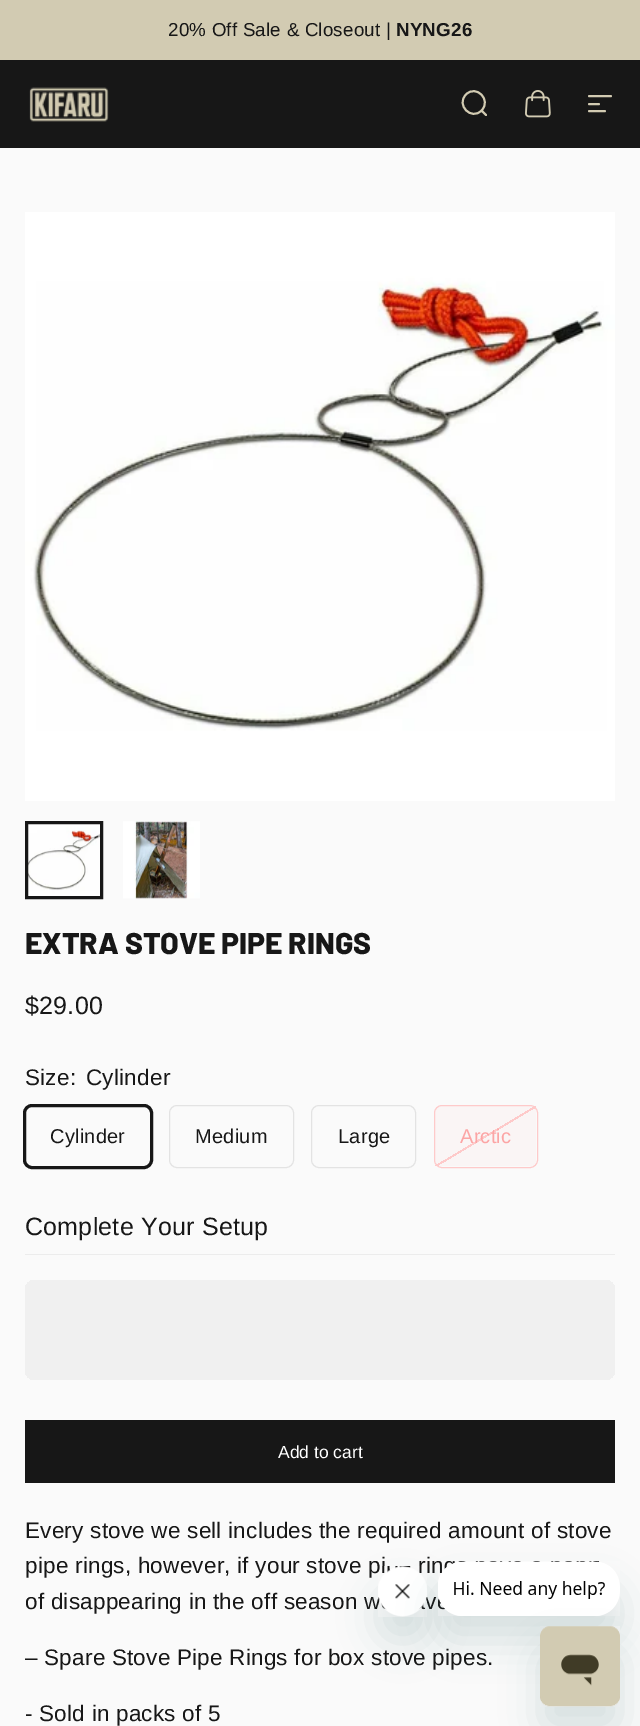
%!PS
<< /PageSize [640 1726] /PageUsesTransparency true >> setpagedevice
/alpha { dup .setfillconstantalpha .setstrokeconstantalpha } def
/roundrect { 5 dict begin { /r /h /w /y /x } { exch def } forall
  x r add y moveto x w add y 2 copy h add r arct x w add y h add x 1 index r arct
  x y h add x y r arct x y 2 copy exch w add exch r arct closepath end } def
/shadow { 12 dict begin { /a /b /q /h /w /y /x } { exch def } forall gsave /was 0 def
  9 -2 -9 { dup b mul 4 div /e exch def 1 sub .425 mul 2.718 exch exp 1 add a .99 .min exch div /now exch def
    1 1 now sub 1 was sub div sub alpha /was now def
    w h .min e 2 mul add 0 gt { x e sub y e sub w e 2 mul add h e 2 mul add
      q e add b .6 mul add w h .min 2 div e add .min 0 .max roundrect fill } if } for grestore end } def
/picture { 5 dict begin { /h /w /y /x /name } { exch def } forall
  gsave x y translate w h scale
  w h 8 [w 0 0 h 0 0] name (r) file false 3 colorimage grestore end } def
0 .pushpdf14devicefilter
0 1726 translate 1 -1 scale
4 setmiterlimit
0.98 setgray
0 0 640 1726 rectfill
0.824 0.796 0.698 setrgbcolor
0 0 640 60 rectfill
/LiberationSans-Regular [18.75 0 0 -18.75 0 0] selectfont
0.09 setgray
168 36 moveto 0.22 0 (20% Off Sale & Closeout |) ashow
/LiberationSans-Bold [18.75 0 0 -18.75 0 0] selectfont
396 36 moveto 0.22 0 (NYNG26) ashow
0 60 640 88 rectfill
(img1.rgb) 29 87 80 35 picture
0.824 0.796 0.698 setrgbcolor
1.9 setlinewidth
1 setlinecap
newpath 486 115 moveto 481.5 110.5 lineto 481.5 110.5 moveto 492 100 476 84 466 94.5 curveto 455.5 105 471.5 121 481.5 110.5 curveto closepath stroke
(img2.rgb) 525 90 26 28 picture
newpath 589 96 moveto 611 96 lineto 589 104 moveto 599 104 lineto 589 111 moveto 605 111 lineto stroke
(img3.rgb) 25 212 590 589 picture
(img4.rgb) 28 824 72 72 picture
0.09 setgray
3 setlinewidth
0 setlinecap
26.5 822.5 75 75 rectstroke
(img5.rgb) 123 821 77 78 picture
/Barlow-ExtraBold [30 0 0 -30 0 0] selectfont
25 954 moveto (EXTRA STOVE PIPE RINGS) show
/LiberationSans-Regular [25 0 0 -25 0 0] selectfont
25 1014 moveto 0.22 0 ($29.00) ashow
/LiberationSans-Regular [22.5 0 0 -22.5 0 0] selectfont
25 1085 moveto 0.22 0 (Size:) ashow
86 1085 moveto 0.22 0 (Cylinder) ashow
24.5 1105.5 127 62 7.5 roundrect stroke
/LiberationSans-Regular [20 0 0 -20 0 0] selectfont
50 1143 moveto 0.22 0 (Cylinder) ashow
0.89 setgray
1 setlinewidth
169.5 1105.5 124 62 7.5 roundrect stroke
0.09 setgray
195 1143 moveto 0.22 0 (Medium) ashow
0.89 setgray
311.5 1105.5 104 62 7.5 roundrect stroke
0.09 setgray
338 1143 moveto 0.22 0 (Large) ashow
gsave newpath 435 1106 moveto 536 1106 lineto 536 1166 lineto 435 1166 lineto closepath clip newpath
<< /ShadingType 2 /ColorSpace /DeviceRGB /Coords [459 1092 512 1181] /Extend [true true] /Function << /FunctionType 3 /Domain [0 1] /Functions [<< /FunctionType 2 /Domain [0 1] /C0 [0.98 0.98 0.98] /C1 [0.98 0.98 0.98] /N 1 >> << /FunctionType 2 /Domain [0 1] /C0 [0.996 0.792 0.792] /C1 [0.996 0.792 0.792] /N 1 >> << /FunctionType 2 /Domain [0 1] /C0 [0.98 0.98 0.98] /C1 [0.98 0.98 0.98] /N 1 >>] /Bounds [0.49 0.51] /Encode [0 1 0 1 0 1] >> >> shfill grestore
0.11 alpha
0.996 0.792 0.792 setrgbcolor
435 1106 101 60 6 roundrect fill
1 alpha
434.5 1105.5 103 62 7.5 roundrect stroke
0.988 0.647 0.647 setrgbcolor
460 1143 moveto 0.22 0 (Arctic) ashow
0.925 setgray
25 1254 590 1 rectfill
/LiberationSans-Regular [25 0 0 -25 0 0] selectfont
0.09 setgray
25 1235 moveto 0.22 0 (Complete Your Setup) ashow
gsave 25 1280 590 100 10 roundrect clip newpath
<< /ShadingType 2 /ColorSpace /DeviceRGB /Coords [52 1127 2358 1533] /Extend [true true] /Function << /FunctionType 3 /Domain [0 1] /Functions [<< /FunctionType 2 /Domain [0 1] /C0 [0.941 0.941 0.941] /C1 [0.941 0.941 0.941] /N 1 >> << /FunctionType 2 /Domain [0 1] /C0 [0.941 0.941 0.941] /C1 [0.878 0.878 0.878] /N 1 >> << /FunctionType 2 /Domain [0 1] /C0 [0.878 0.878 0.878] /C1 [0.941 0.941 0.941] /N 1 >> << /FunctionType 2 /Domain [0 1] /C0 [0.941 0.941 0.941] /C1 [0.941 0.941 0.941] /N 1 >>] /Bounds [0.4 0.63 0.79] /Encode [0 1 0 1 0 1 0 1] >> >> shfill grestore
25 1420 590 63 rectfill
/LiberationSans-Regular [17.5 0 0 -17.5 0 0] selectfont
1 setgray
278 1458 moveto (Add to cart) show
/LiberationSans-Regular [22.5 0 0 -22.5 0 0] selectfont
0.09 setgray
25 1538 moveto 0.22 0 (Every stove we sell includes the required amount of stove) ashow
25 1573 moveto 0.22 0 (pipe rings, however, if your stove pi) ashow
418 1573 moveto 0.22 0 (rin) ashow
25 1609 moveto 0.22 0 (of disappearing in the off season w) ashow
425 1609 moveto 0.22 0 (v) ashow
25 1665 moveto 0.22 0 (– Spare Stove Pipe Rings for box stove pipes.) ashow
25 1721 moveto 0.22 0 (- Sold in packs of 5) ashow
0.09 0.286 0.302 setrgbcolor
378 1591 50 50 25 19 0.15 shadow
(img7.rgb) 378 1566 49 51 picture
438 1586 182 55 25 19 0.15 shadow
(img6.rgb) 438 1561 182 55 picture
540 1651 80 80 10 19 0.15 shadow
(img8.rgb) 540 1626 80 81 picture
.poppdf14devicefilter showpage
